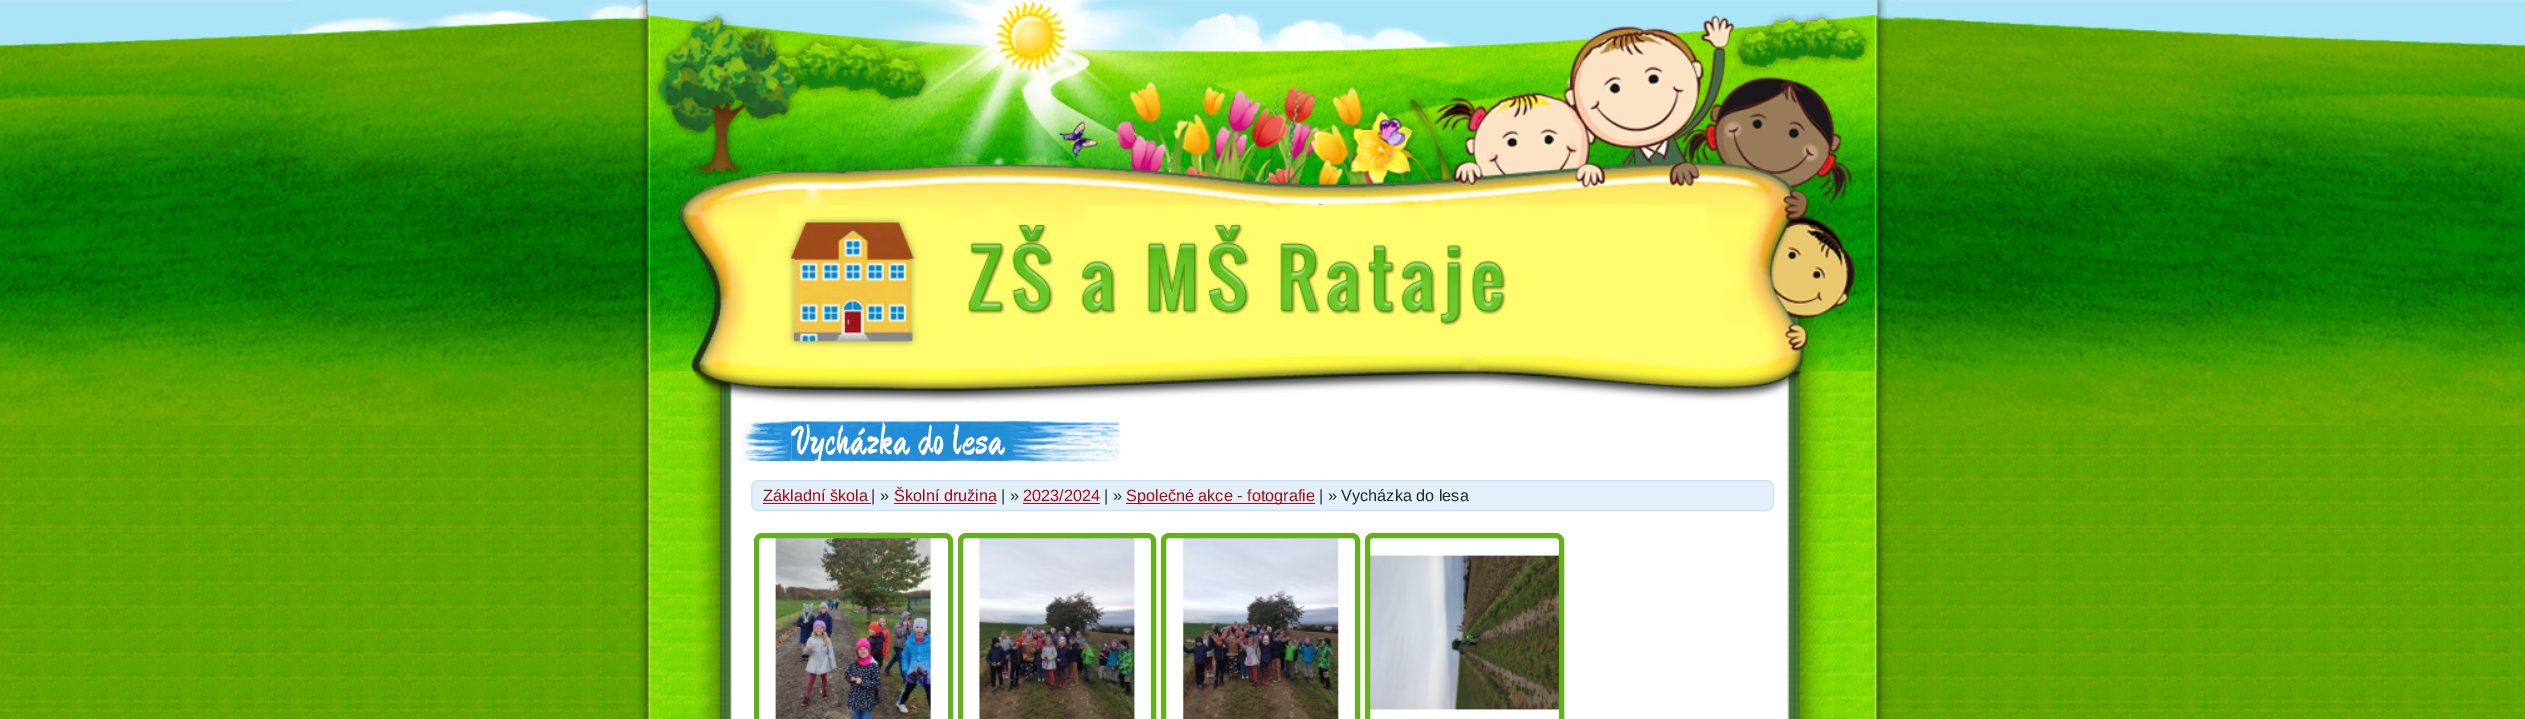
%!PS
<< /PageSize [2525 719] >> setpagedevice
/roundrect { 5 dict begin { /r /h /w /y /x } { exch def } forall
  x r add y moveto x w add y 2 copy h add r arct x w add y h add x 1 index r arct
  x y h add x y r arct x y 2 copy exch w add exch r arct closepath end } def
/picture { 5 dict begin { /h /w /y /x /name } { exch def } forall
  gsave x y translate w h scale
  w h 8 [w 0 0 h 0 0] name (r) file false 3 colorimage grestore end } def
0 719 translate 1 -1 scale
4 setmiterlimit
1 setgray
0 0 2525 719 rectfill
(img1.rgb) 0 425 2525 294 picture
(img2.rgb) 0 0 2525 425 picture
(img3.rgb) 638 0 1249 719 picture
(img4.rgb) 647 0 1231 404 picture
(img5.rgb) 786 216 133 132 picture
(img6.rgb) 1005 421 116 41 picture
(img8.rgb) 791 421 214 41 picture
(img7.rgb) 739 421 53 41 picture
gsave
739 421 382 40 rectclip
/Devonshire-Regular [40 0 0 -40 0 0] selectfont
791 454 moveto (Vycházka do lesa) show
grestore
0.882 0.941 0.984 setrgbcolor
751.5 480.5 1022 30 7.5 roundrect gsave fill grestore
0.788 0.89 0.973 setrgbcolor
stroke
/LiberationSans-Regular [16.25 0 0 -16.25 0 0] selectfont
0.675 0.035 0.055 setrgbcolor
763 501 moveto (Základní škola) show
763 503 108 1 rectfill
0.157 setgray
871 501 moveto (| ») show
0.675 0.035 0.055 setrgbcolor
894 501 moveto (Školní družina) show
894 503 102 1 rectfill
0.157 setgray
1001 501 moveto (| ») show
0.675 0.035 0.055 setrgbcolor
1023 501 moveto (2023/2024) show
1023 503 77 1 rectfill
0.157 setgray
1104 501 moveto (| ») show
0.675 0.035 0.055 setrgbcolor
1126 503 189 1 rectfill
1126 501 moveto (Společné akce - fotografie) show
0.157 setgray
1319 501 moveto (| » Vycházka do lesa) show
(img9.rgb) 774 532 158 187 picture
0.396 0.694 0.11 setrgbcolor
5 setlinewidth
756.5 535.5 194 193 5.5 roundrect stroke
(img10.rgb) 978 532 158 187 picture
960.5 535.5 193 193 5.5 roundrect stroke
(img11.rgb) 1182 532 158 187 picture
1163.5 535.5 194 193 5.5 roundrect stroke
(img12.rgb) 1370 554 189 157 picture
1367.5 535.5 194 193 5.5 roundrect stroke
showpage
